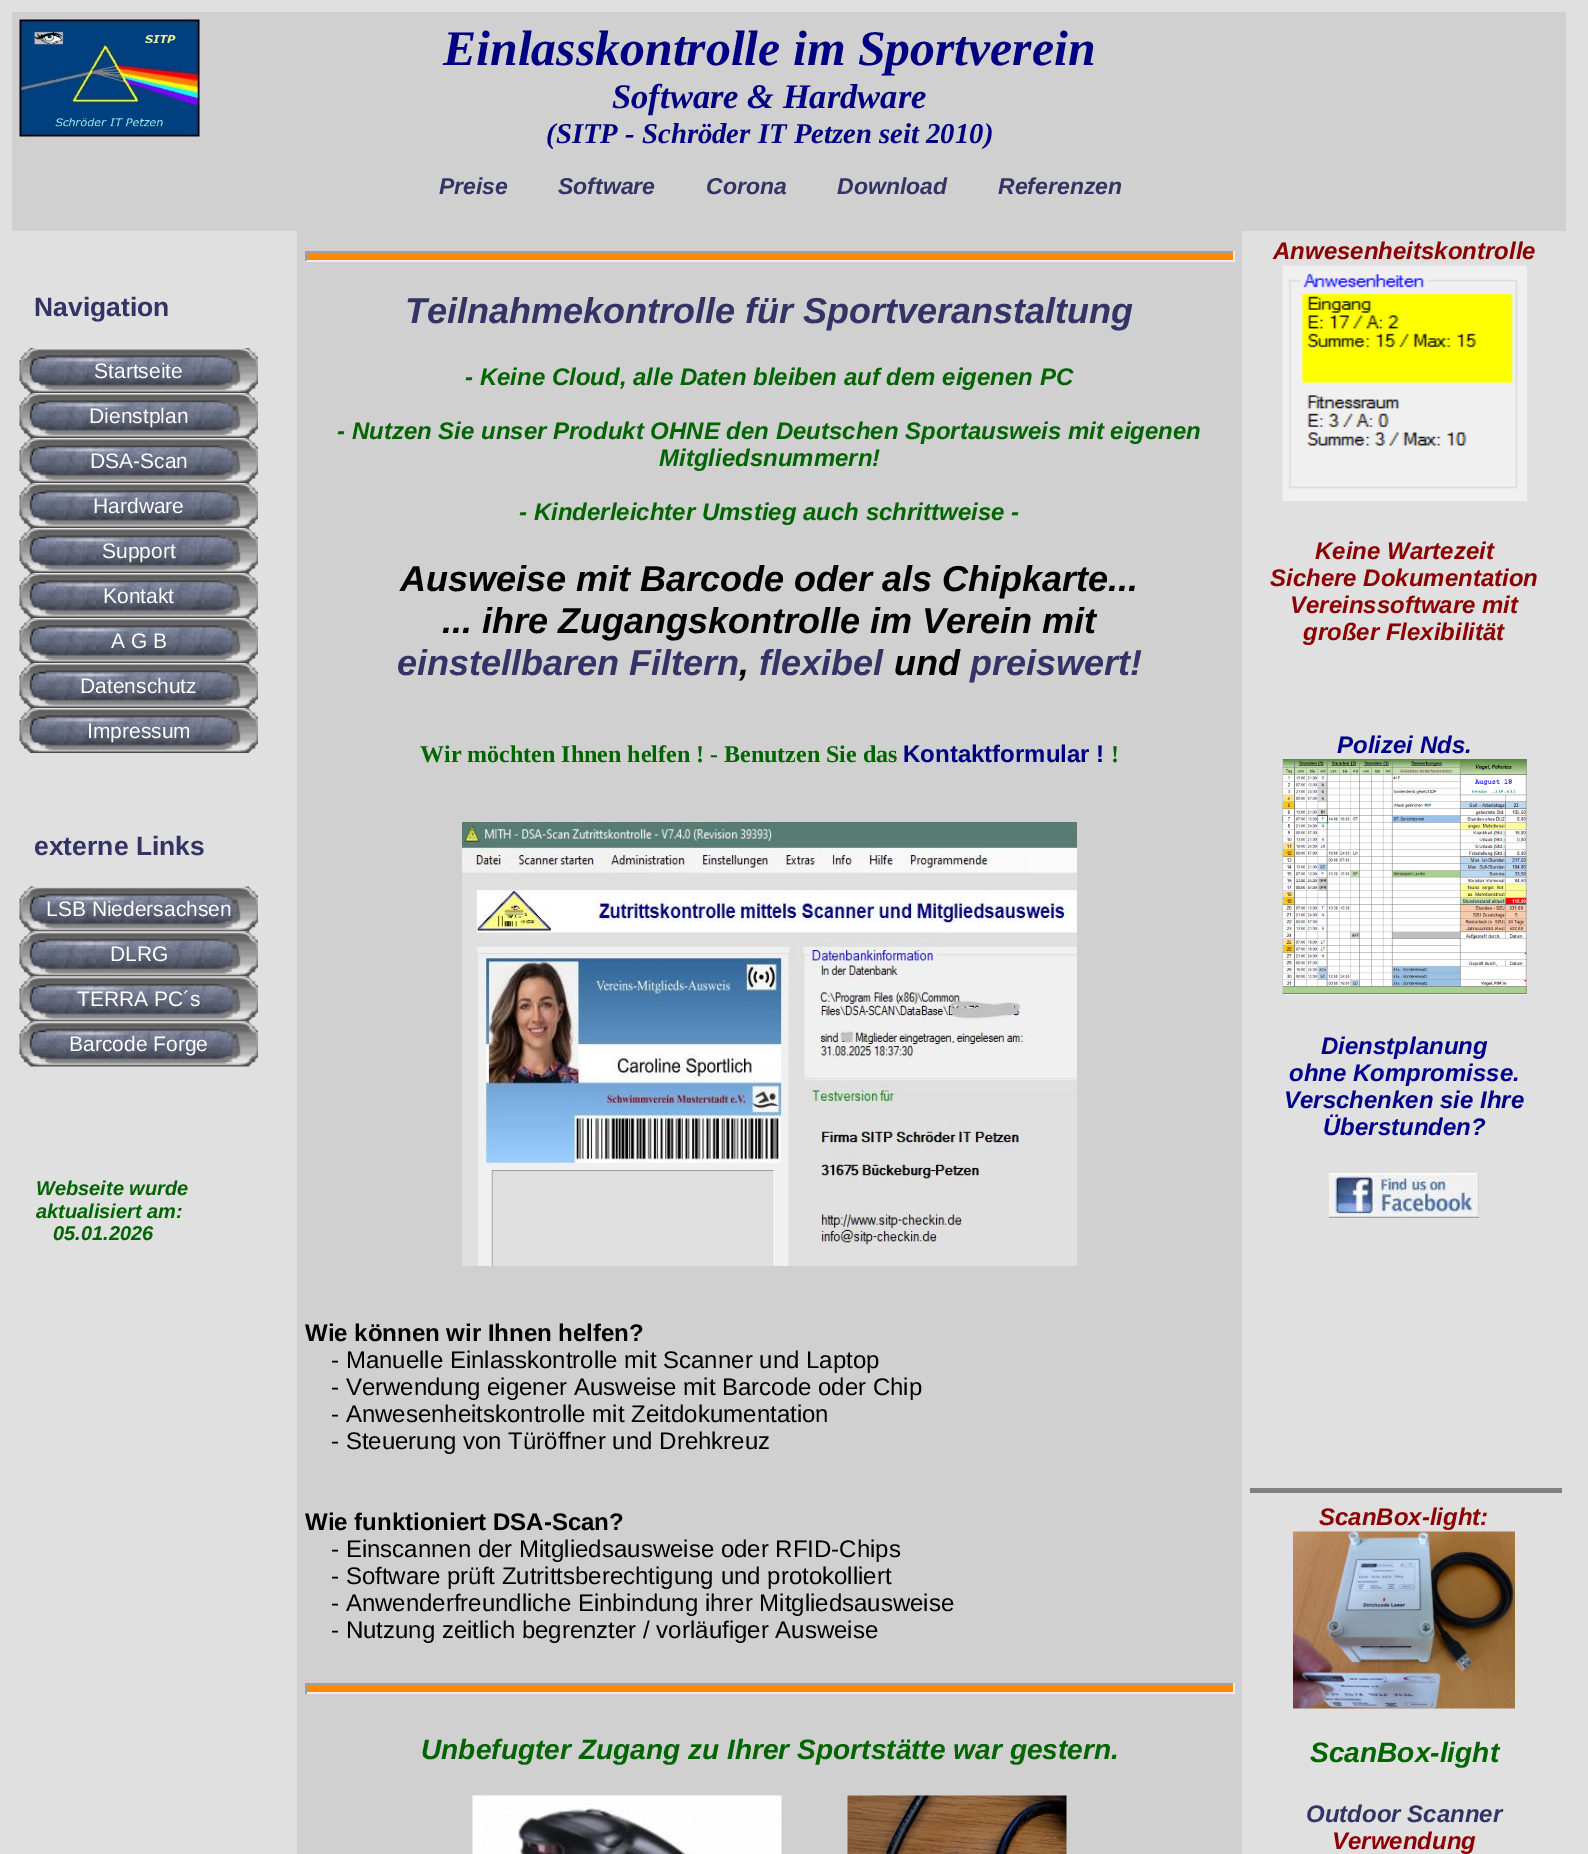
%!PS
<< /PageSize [1588 1854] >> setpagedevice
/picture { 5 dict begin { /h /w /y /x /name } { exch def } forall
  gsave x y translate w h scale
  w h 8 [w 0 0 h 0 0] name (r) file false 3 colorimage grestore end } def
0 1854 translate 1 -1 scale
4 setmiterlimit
0.878 setgray
0 0 1588 1854 rectfill
0.816 setgray
12 12 1554 219 rectfill
(img1.rgb) 19 19 181 118 picture
/LiberationSerif-BoldItalic [49.75 0 0 -49.75 0 0] selectfont
0 0 0.51 setrgbcolor
443 65 moveto (Einlasskontrolle im Sportverein) show
/LiberationSerif-BoldItalic [34.5 0 0 -34.5 0 0] selectfont
612 108 moveto (Software & Hardware) show
/LiberationSerif-BoldItalic [28.75 0 0 -28.75 0 0] selectfont
546 143 moveto (\(SITP - Schröder IT Petzen seit 2010\)) show
/LiberationSans-BoldItalic [23 0 0 -23 0 0] selectfont
0.2 0.2 0.4 setrgbcolor
439 194 moveto (Preise) show
558 194 moveto (Software) show
706 194 moveto (Corona) show
837 194 moveto (Download) show
998 194 moveto (Referenzen) show
/LiberationSans-Bold [26.5 0 0 -26.5 0 0] selectfont
34 316 moveto (Navigation) show
(img2.rgb) 19 348 239 45 picture
/LiberationSans-Regular [21 0 0 -21 0 0] selectfont
1 setgray
94 378 moveto (Startseite) show
(img2.rgb) 19 393 239 45 picture
89 423 moveto (Dienstplan) show
(img2.rgb) 19 438 239 45 picture
90 468 moveto (DSA-Scan) show
(img2.rgb) 19 483 239 45 picture
93 513 moveto (Hardware) show
(img2.rgb) 19 528 239 45 picture
102 558 moveto (Support) show
(img2.rgb) 19 573 239 45 picture
103 603 moveto (Kontakt) show
(img2.rgb) 19 618 239 45 picture
111 648 moveto (A G B) show
(img2.rgb) 19 663 239 45 picture
80 693 moveto (Datenschutz) show
(img2.rgb) 19 708 239 45 picture
87 738 moveto (Impressum) show
/LiberationSans-Bold [26.5 0 0 -26.5 0 0] selectfont
0.2 0.2 0.4 setrgbcolor
34 855 moveto (externe Links) show
(img3.rgb) 19 886 239 46 picture
/LiberationSans-Regular [21 0 0 -21 0 0] selectfont
1 setgray
46 916 moveto (LSB Niedersachsen) show
(img4.rgb) 19 931 239 46 picture
110 961 moveto (DLRG) show
(img4.rgb) 19 976 239 46 picture
77 1006 moveto (TERRA PC´s) show
(img4.rgb) 19 1021 239 46 picture
69 1051 moveto (Barcode Forge) show
/LiberationSans-BoldItalic [20 0 0 -20 0 0] selectfont
0 0.392 0 setrgbcolor
36 1195 moveto (Webseite wurde) show
36 1218 moveto (aktualisiert am:) show
53 1240 moveto (05.01.2026) show
0.816 setgray
297 231 945 1623 rectfill
1 0.549 0 setrgbcolor
307 253 926 7 rectfill
0.624 setgray
305 251 930 2 rectfill
0.933 setgray
1233 251 2 10 rectfill
305 260 930 2 rectfill
0.624 setgray
305 251 2 10 rectfill
/LiberationSans-BoldItalic [36 0 0 -36 0 0] selectfont
0.2 0.2 0.4 setrgbcolor
405 323 moveto (Teilnahmekontrolle für Sportveranstaltung) show
/LiberationSans-BoldItalic [24 0 0 -24 0 0] selectfont
0 0.392 0 setrgbcolor
465 385 moveto (- Keine Cloud, alle Daten bleiben auf dem eigenen PC) show
337 439 moveto (- Nutzen Sie unser Produkt OHNE den Deutschen Sportausweis mit eigenen) show
659 466 moveto (Mitgliedsnummern!) show
519 520 moveto (- Kinderleichter Umstieg auch schrittweise -) show
/LiberationSans-BoldItalic [36 0 0 -36 0 0] selectfont
0 setgray
400 591 moveto (Ausweise mit Barcode oder als Chipkarte...) show
442 633 moveto (... ihre Zugangskontrolle im Verein mit) show
0.2 0.2 0.4 setrgbcolor
397 675 moveto (einstellbaren Filtern) show
0 setgray
739 675 moveto (,) show
0.2 0.2 0.4 setrgbcolor
759 675 moveto (flexibel) show
0 setgray
894 675 moveto (und) show
0.2 0.2 0.4 setrgbcolor
970 675 moveto (preiswert!) show
/LiberationSerif-Bold [24 0 0 -24 0 0] selectfont
0 0.392 0 setrgbcolor
420 762 moveto (Wir möchten Ihnen helfen ! - Benutzen Sie das) show
/LiberationSans-Bold [24 0 0 -24 0 0] selectfont
0 0 0.51 setrgbcolor
903 762 moveto (Kontaktformular !) show
/LiberationSerif-Bold [24 0 0 -24 0 0] selectfont
0 0.392 0 setrgbcolor
1111 762 moveto (!) show
(img5.rgb) 462 822 615 444 picture
/LiberationSans-Bold [24 0 0 -24 0 0] selectfont
0 setgray
305 1341 moveto (Wie können wir Ihnen helfen?) show
/LiberationSans-Regular [24 0 0 -24 0 0] selectfont
331 1368 moveto (- Manuelle Einlasskontrolle mit Scanner und Laptop) show
331 1395 moveto (- Verwendung eigener Ausweise mit Barcode oder Chip) show
331 1422 moveto (- Anwesenheitskontrolle mit Zeitdokumentation) show
331 1449 moveto (- Steuerung von Türöffner und Drehkreuz) show
/LiberationSans-Bold [24 0 0 -24 0 0] selectfont
305 1530 moveto (Wie funktioniert DSA-Scan?) show
/LiberationSans-Regular [24 0 0 -24 0 0] selectfont
331 1557 moveto (- Einscannen der Mitgliedsausweise oder RFID-Chips) show
331 1584 moveto (- Software prüft Zutrittsberechtigung und protokolliert) show
331 1611 moveto (- Anwenderfreundliche Einbindung ihrer Mitgliedsausweise) show
331 1638 moveto (- Nutzung zeitlich begrenzter / vorläufiger Ausweise) show
1 0.549 0 setrgbcolor
307 1685 926 7 rectfill
0.624 setgray
305 1683 930 2 rectfill
0.933 setgray
1233 1683 2 11 rectfill
305 1692 930 2 rectfill
0.624 setgray
305 1683 2 11 rectfill
/LiberationSans-BoldItalic [28.1 0 0 -28.1 0 0] selectfont
0 0.392 0 setrgbcolor
421 1759 moveto (Unbefugter Zugang zu Ihrer Sportstätte war gestern.) show
(img6.rgb) 472 1795 310 59 picture
(img7.rgb) 847 1795 220 59 picture
/LiberationSans-BoldItalic [24 0 0 -24 0 0] selectfont
0.545 0 0 setrgbcolor
1273 259 moveto (Anwesenheitskontrolle) show
(img8.rgb) 1282 265 245 236 picture
1315 559 moveto (Keine Wartezeit) show
1270 586 moveto (Sichere Dokumentation) show
1290 613 moveto (Vereinssoftware mit) show
1303 640 moveto (großer Flexibilität) show
0 0 0.545 setrgbcolor
1337 753 moveto (Polizei Nds.) show
(img9.rgb) 1282 759 245 236 picture
1321 1054 moveto (Dienstplanung) show
1289 1081 moveto (ohne Kompromisse.) show
1284 1108 moveto (Verschenken sie Ihre) show
1323 1135 moveto (Überstunden?) show
(img10.rgb) 1329 1173 150 45 picture
0.502 setgray
1250 1488 312 5 rectfill
0.545 0 0 setrgbcolor
1319 1525 moveto (ScanBox-light:) show
(img11.rgb) 1293 1531 222 178 picture
/LiberationSans-BoldItalic [28.1 0 0 -28.1 0 0] selectfont
0 0.392 0 setrgbcolor
1310 1762 moveto (ScanBox-light) show
/LiberationSans-BoldItalic [24 0 0 -24 0 0] selectfont
0.2 0.2 0.4 setrgbcolor
1306 1822 moveto (Outdoor Scanner) show
0.545 0 0 setrgbcolor
1332 1849 moveto (Verwendung) show
showpage
